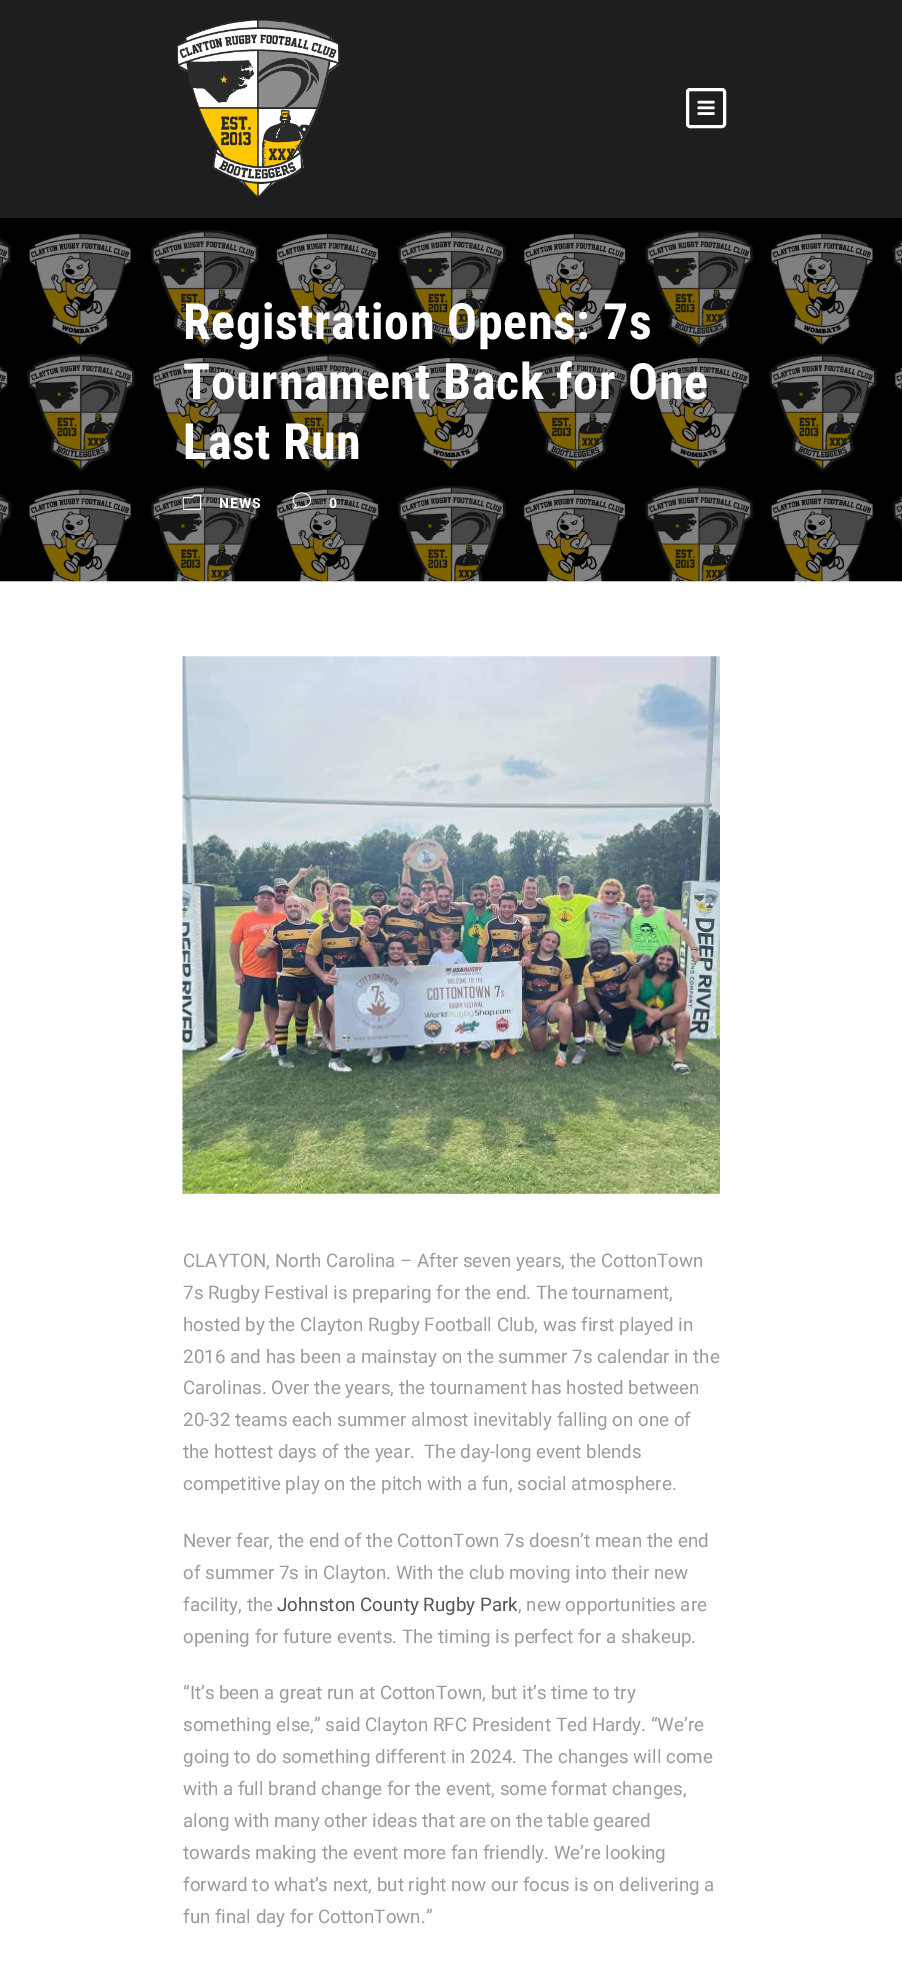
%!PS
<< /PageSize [902 1963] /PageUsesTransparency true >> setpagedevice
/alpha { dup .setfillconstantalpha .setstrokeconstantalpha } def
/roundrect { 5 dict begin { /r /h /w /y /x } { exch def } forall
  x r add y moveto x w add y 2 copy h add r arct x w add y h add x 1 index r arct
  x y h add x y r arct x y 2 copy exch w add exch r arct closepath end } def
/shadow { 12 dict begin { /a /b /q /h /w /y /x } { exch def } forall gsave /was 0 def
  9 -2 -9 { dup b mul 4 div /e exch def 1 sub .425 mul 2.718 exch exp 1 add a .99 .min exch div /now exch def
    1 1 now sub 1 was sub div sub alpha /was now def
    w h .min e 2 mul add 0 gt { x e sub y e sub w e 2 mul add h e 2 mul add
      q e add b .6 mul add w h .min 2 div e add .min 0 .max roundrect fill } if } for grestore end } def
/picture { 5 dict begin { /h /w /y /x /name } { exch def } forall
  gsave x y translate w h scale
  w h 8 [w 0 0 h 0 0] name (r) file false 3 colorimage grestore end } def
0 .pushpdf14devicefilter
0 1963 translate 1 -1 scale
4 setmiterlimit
1 setgray
0 0 902 1963 rectfill
(img3.rgb) 0 218 902 364 picture
0 setgray
0 1 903 218 0 1 0.1 shadow
0.118 setgray
0 0 902 218 rectfill
(img1.rgb) 176 20 164 178 picture
1 setgray
3 setlinewidth
687.5 89.5 37 37 2.5 roundrect stroke
(img2.rgb) 697 100 18 15 picture
/RobotoCondensed-Bold [50 0 0 -50 0 0] selectfont
183 339 moveto 0.6 0 (Registration Opens: 7s) ashow
183 399 moveto 0.6 0 (Tournament Back for One) ashow
183 459 moveto 0.6 0 (Last Run) ashow
(img4.rgb) 183 494 19 16 picture
/Roboto-Bold [14 0 0 -14 0 0] selectfont
219 508 moveto 1 0 (NEWS) ashow
(img5.rgb) 292 492 20 17 picture
329 508 moveto 1 0 (0) ashow
(img6.rgb) 182 656 538 538 picture
/Roboto-Regular [18.75 0 0 -18.75 0 0] selectfont
0.608 setgray
183 1267 moveto (CLAYTON, North Carolina – After seven years, the CottonTown) show
183 1299 moveto (7s Rugby Festival is preparing for the end. The tournament,) show
183 1331 moveto (hosted by the Clayton Rugby Football Club, was first played in) show
183 1363 moveto (2016 and has been a mainstay on the summer 7s calendar in the) show
183 1394 moveto (Carolinas. Over the years, the tournament has hosted between) show
183 1426 moveto (20-32 teams each summer almost inevitably falling on one of) show
183 1458 moveto (the hottest days of the year.  The day-long event blends) show
183 1490 moveto (competitive play on the pitch with a fun, social atmosphere.) show
183 1547 moveto (Never fear, the end of the CottonTown 7s doesn’t mean the end) show
183 1579 moveto (of summer 7s in Clayton. With the club moving into their new) show
183 1611 moveto (facility, the) show
0.329 setgray
277 1611 moveto (Johnston County Rugby Park) show
0.608 setgray
518 1611 moveto (, new opportunities are) show
183 1643 moveto (opening for future events. The timing is perfect for a shakeup.) show
183 1699 moveto (“It’s been a great run at CottonTown, but it’s time to try) show
183 1731 moveto (something else,” said Clayton RFC President Ted Hardy. “We’re) show
183 1763 moveto (going to do something different in 2024. The changes will come) show
183 1795 moveto (with a full brand change for the event, some format changes,) show
183 1827 moveto (along with many other ideas that are on the table geared) show
183 1859 moveto (towards making the event more fan friendly. We’re looking) show
183 1891 moveto (forward to what’s next, but right now our focus is on delivering a) show
183 1923 moveto (fun final day for CottonTown.”) show
.poppdf14devicefilter showpage
